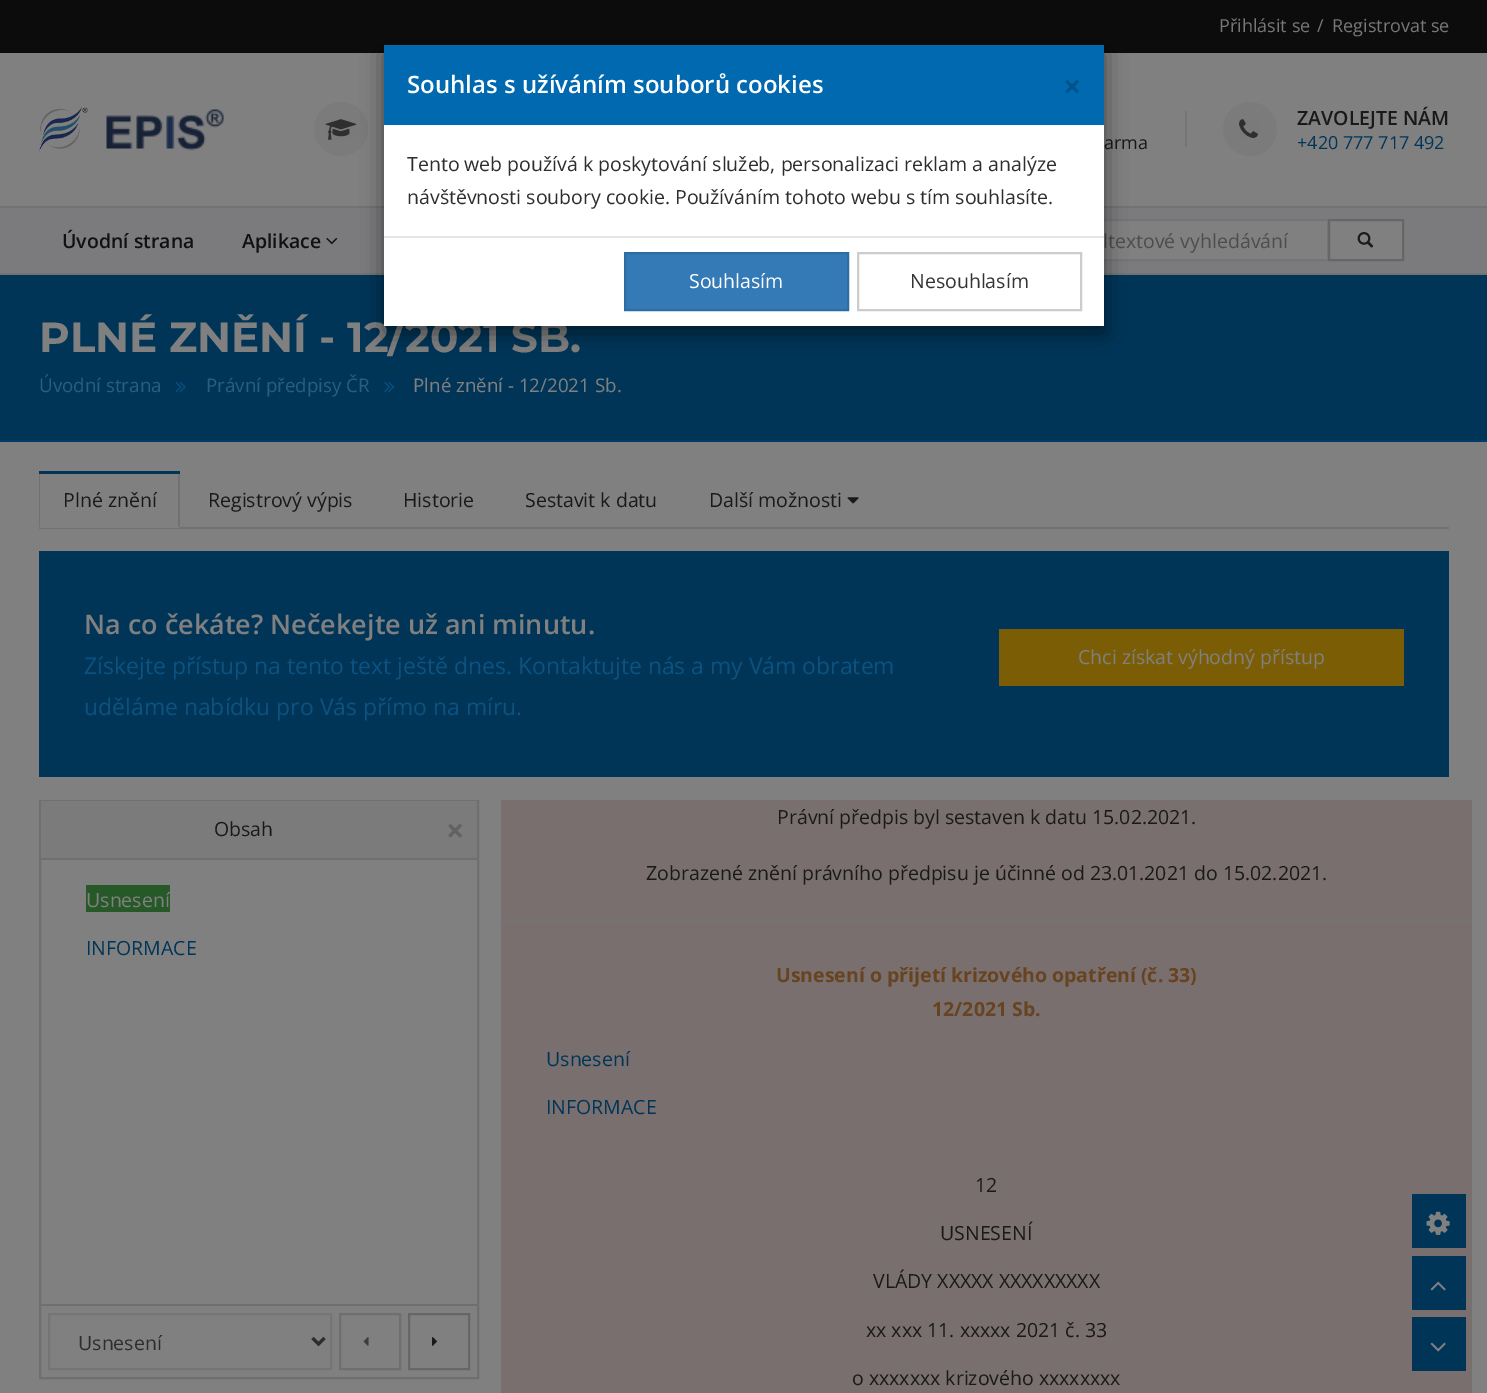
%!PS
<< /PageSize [1487 1393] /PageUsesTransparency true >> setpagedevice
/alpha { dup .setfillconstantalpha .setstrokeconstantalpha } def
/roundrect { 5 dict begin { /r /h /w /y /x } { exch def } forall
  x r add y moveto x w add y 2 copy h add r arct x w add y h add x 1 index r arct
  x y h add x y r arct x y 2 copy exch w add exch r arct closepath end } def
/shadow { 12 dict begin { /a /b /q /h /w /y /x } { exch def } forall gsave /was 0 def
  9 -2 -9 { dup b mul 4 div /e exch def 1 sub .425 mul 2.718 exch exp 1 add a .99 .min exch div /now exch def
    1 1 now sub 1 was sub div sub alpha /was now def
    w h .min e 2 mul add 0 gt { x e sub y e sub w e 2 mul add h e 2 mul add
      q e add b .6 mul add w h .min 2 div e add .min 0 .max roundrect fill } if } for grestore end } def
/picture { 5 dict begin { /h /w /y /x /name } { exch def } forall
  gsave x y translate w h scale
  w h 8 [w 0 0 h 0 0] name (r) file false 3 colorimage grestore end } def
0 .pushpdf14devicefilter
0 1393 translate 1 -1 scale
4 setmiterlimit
0.502 setgray
0 0 1487 1393 rectfill
0.047 setgray
0 0 1487 53 rectfill
/OpenSans-Regular [18 0 0 -18 0 0] selectfont
0.467 setgray
1219 32 moveto (Přihlásit se) show
1317 32 moveto (/) show
1332 32 moveto (Registrovat se) show
(img1.rgb) 39 107 49 45 picture
(img2.rgb) 106 109 118 42 picture
0.482 setgray
newpath 341 129 27 0 360 arc closepath fill
(img3.rgb) 325 119 32 21 picture
0.098 setgray
1104 149 moveto (arma) show
0.459 setgray
1185 111 2 36 rectfill
0.482 setgray
newpath 1250 129 27 0 360 arc closepath fill
(img4.rgb) 1239 119 19 19 picture
/OpenSans-SemiBold [19.5 0 0 -19.5 0 0] selectfont
0.098 setgray
1297 125 moveto (ZAVOLEJTE NÁM) show
/OpenSans-Regular [18 0 0 -18 0 0] selectfont
0 0.208 0.345 setrgbcolor
1297 149 moveto (+420 777 717 492) show
0.451 setgray
0 206 1487 2 rectfill
0.482 0.482 0.49 setrgbcolor
0 208 1487 65 rectfill
/OpenSans-SemiBold [19.5 0 0 -19.5 0 0] selectfont
0.067 setgray
62 248 moveto (Úvodní strana) show
242 248 moveto (Aplikace) show
(img5.rgb) 326 237 12 8 picture
0.502 setgray
1104 221 223 38 rectfill
0.459 setgray
2 setlinewidth
1054 220 274 40 rectstroke
/OpenSans-Regular [19.5 0 0 -19.5 0 0] selectfont
0.302 setgray
1103 248 moveto (ltextové vyhledávání) show
0.502 setgray
newpath 1329 220 moveto 1403 220 lineto 1403 260 lineto 1329 260 lineto closepath gsave fill grestore
0.4 setgray
stroke
(img6.rgb) 1357 232 17 16 picture
0.451 setgray
0 273 1487 2 rectfill
0 0.208 0.345 setrgbcolor
0 275 1487 165 rectfill
0 0.235 0.396 setrgbcolor
0 440 1487 2 rectfill
/Montserrat-Bold [42 0 0 -42 0 0] selectfont
0.502 setgray
39 352 moveto (PLNÉ ZNĚNÍ - 12/2021 SB.) show
/OpenSans-Regular [18.75 0 0 -18.75 0 0] selectfont
0.165 0.365 0.502 setrgbcolor
39 392 moveto (Úvodní strana) show
(img7.rgb) 175 381 11 12 picture
206 392 moveto (Právní předpisy ČR) show
(img8.rgb) 384 381 11 11 picture
0.502 setgray
413 392 moveto (Plné znění - 12/2021 Sb.) show
0.443 setgray
39 527 1410 2 rectfill
0.502 setgray
39 527 141 1 rectfill
0.443 setgray
newpath 180 471 moveto 180 528 lineto 178 526 lineto 178 472 lineto closepath fill
newpath 39 528 moveto 39 471 lineto 40 472 lineto 40 526 lineto closepath fill
0 0.208 0.345 setrgbcolor
39 471 141 3 rectfill
/OpenSans-Regular [19.5 0 0 -19.5 0 0] selectfont
0.098 setgray
63 507 moveto (Plné znění) show
208 507 moveto (Registrový výpis) show
403 507 moveto (Historie) show
525 507 moveto (Sestavit k datu) show
709 507 moveto (Další možnosti) show
(img9.rgb) 847 497 12 7 picture
0 0.208 0.345 setrgbcolor
39 551 1410 226 rectfill
/OpenSans-SemiBold [27 0 0 -27 0 0] selectfont
0.502 setgray
84 634 moveto (Na co čekáte? Nečekejte už ani minutu.) show
/OpenSans-Regular [22.95 0 0 -22.95 0 0] selectfont
0.047 0.318 0.502 setrgbcolor
84 674 moveto (Získejte přístup na tento text ještě dnes. Kontaktujte nás a my Vám obratem) show
84 715 moveto (uděláme nabídku pro Vás přímo na míru.) show
0.478 0.365 0.016 setrgbcolor
999 629 405 57 rectfill
/OpenSans-Regular [19.5 0 0 -19.5 0 0] selectfont
0.502 setgray
1078 664 moveto (Chci získat výhodný přístup) show
0.475 0.435 0.435 setrgbcolor
501 800 971 593 rectfill
0.098 setgray
777 824 moveto (Právní předpis byl sestaven k datu 15.02.2021.) show
646 880 moveto (Zobrazené znění právního předpisu je účinné od 23.01.2021 do 15.02.2021.) show
0.451 setgray
501 920 971 2 rectfill
/OpenSans-Bold [19.5 0 0 -19.5 0 0] selectfont
0.404 0.263 0.125 setrgbcolor
776 982 moveto (Usnesení o přijetí krizového opatření \(č. 33\)) show
932 1016 moveto (12/2021 Sb.) show
/OpenSans-Regular [19.5 0 0 -19.5 0 0] selectfont
0 0.208 0.345 setrgbcolor
546 1066 moveto (Usnesení) show
546 1114 moveto (INFORMACE) show
0.098 setgray
975 1192 moveto (12) show
940 1240 moveto (USNESENÍ) show
873 1288 moveto (VLÁDY XXXXX XXXXXXXXX) show
866 1337 moveto (xx xxx 11. xxxxx 2021 č. 33) show
852 1385 moveto (o xxxxxxx krizového xxxxxxxx) show
0 setgray
384 53 720 280 0 11 0.5 shadow
1 setgray
384 125 720 201 rectfill
0 0.412 0.69 setrgbcolor
384 45 720 80 rectfill
/OpenSans-SemiBold [24 0 0 -24 0 0] selectfont
1 setgray
407 93 moveto (Souhlas s užíváním souborů cookies) show
/OpenSans-Bold [32 0 0 -32 0 0] selectfont
0 0.329 0.553 setrgbcolor
1063 98 moveto (×) show
/OpenSans-Regular [19.5 0 0 -19.5 0 0] selectfont
0.176 setgray
407 171 moveto (Tento web používá k poskytování služeb, personalizaci reklam a analýze) show
407 204 moveto (návštěvnosti soubory cookie. Používáním tohoto webu s tím souhlasíte.) show
0.898 setgray
384 236 720 2 rectfill
0.2 0.478 0.718 setrgbcolor
newpath 625 253 moveto 848 253 lineto 848 310 lineto 625 310 lineto closepath gsave fill grestore
0.18 0.427 0.643 setrgbcolor
stroke
1 setgray
689 288 moveto (Souhlasím) show
0.8 setgray
858 253 223 57 rectstroke
0.2 setgray
910 288 moveto (Nesouhlasím) show
0.435 setgray
40 801 438 577 rectstroke
0.482 setgray
41 801 436 57 rectfill
0.435 setgray
41 858 436 2 rectfill
0.098 setgray
214 836 moveto (Obsah) show
/OpenSans-Bold [32 0 0 -32 0 0] selectfont
0.384 setgray
446 842 moveto (×) show
0.149 0.345 0.157 setrgbcolor
86 885 84 27 rectfill
/OpenSans-Regular [19.5 0 0 -19.5 0 0] selectfont
0.502 setgray
86 907 moveto (Usnesení) show
0 0.208 0.345 setrgbcolor
86 955 moveto (INFORMACE) show
0.435 setgray
41 1304 436 2 rectfill
0.459 setgray
49 1314 282 55 rectstroke
0.176 setgray
3 setlinewidth
newpath 312.5 1338 moveto 318.5 1344 lineto 324.5 1338 lineto stroke
78 1350 moveto (Usnesení) show
0.435 setgray
2 setlinewidth
340 1314 60 55 rectstroke
(img10.rgb) 363 1337 6 9 picture
0.4 setgray
409 1314 60 55 rectstroke
(img11.rgb) 432 1337 5 9 picture
0 0.208 0.345 setrgbcolor
1412 1194 54 54 rectfill
(img12.rgb) 1426 1211 24 24 picture
1412 1256 54 54 rectfill
(img13.rgb) 1430 1281 16 10 picture
1412 1317 54 54 rectfill
(img14.rgb) 1430 1342 16 10 picture
.poppdf14devicefilter showpage
